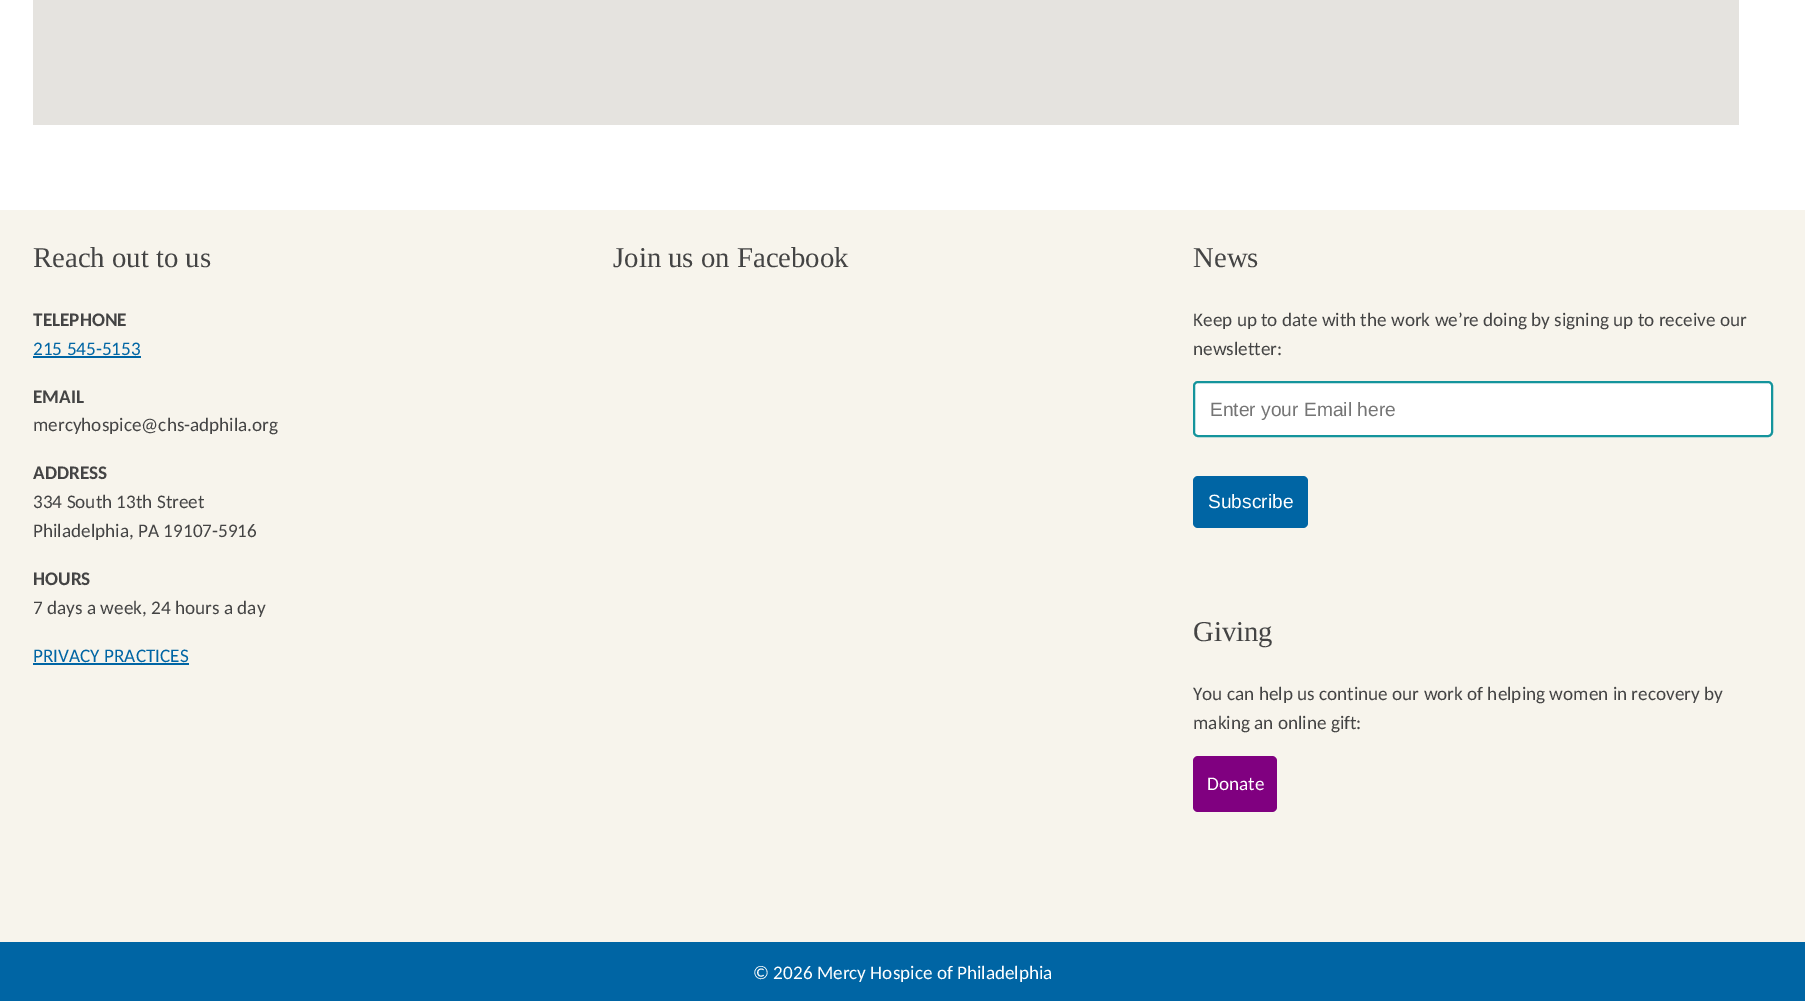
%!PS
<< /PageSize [1805 1001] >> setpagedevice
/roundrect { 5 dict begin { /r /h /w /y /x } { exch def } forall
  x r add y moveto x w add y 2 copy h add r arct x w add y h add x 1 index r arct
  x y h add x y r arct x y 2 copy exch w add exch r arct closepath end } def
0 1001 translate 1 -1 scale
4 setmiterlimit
1 setgray
0 0 1805 1001 rectfill
0.898 0.89 0.875 setrgbcolor
33 0 1706 125 rectfill
0.969 0.957 0.925 setrgbcolor
0 210 1805 732 rectfill
/LiberationSerif-Regular [28.75 0 0 -28.75 0 0] selectfont
0.267 setgray
33 267 moveto (Reach out to us) show
/Carlito-Bold [19.2 0 0 -19.2 0 0] selectfont
33 326 moveto (TELEPHONE) show
/Carlito-Regular [19.2 0 0 -19.2 0 0] selectfont
0 0.396 0.643 setrgbcolor
33 355 moveto (215 545-5153) show
33 356 108 2 rectfill
/Carlito-Bold [19.2 0 0 -19.2 0 0] selectfont
0.267 setgray
33 403 moveto (EMAIL) show
/Carlito-Regular [19.2 0 0 -19.2 0 0] selectfont
33 431 moveto (mercyhospice@chs-adphila.org) show
/Carlito-Bold [19.2 0 0 -19.2 0 0] selectfont
33 479 moveto (ADDRESS) show
/Carlito-Regular [19.2 0 0 -19.2 0 0] selectfont
33 508 moveto (334 South 13th Street) show
33 537 moveto (Philadelphia, PA 19107-5916) show
/Carlito-Bold [19.2 0 0 -19.2 0 0] selectfont
33 585 moveto (HOURS) show
/Carlito-Regular [19.2 0 0 -19.2 0 0] selectfont
33 614 moveto (7 days a week, 24 hours a day) show
0 0.396 0.643 setrgbcolor
33 662 moveto (PRIVACY PRACTICES) show
33 663 156 2 rectfill
/LiberationSerif-Regular [28.75 0 0 -28.75 0 0] selectfont
0.267 setgray
613 267 moveto (Join us on Facebook) show
1193 267 moveto (News) show
/Carlito-Regular [19.2 0 0 -19.2 0 0] selectfont
1193 326 moveto (Keep up to date with the work we’re doing by signing up to receive our) show
1193 355 moveto (newsletter:) show
1 setgray
1194 382 578 54 4 roundrect gsave fill grestore
0.078 0.58 0.612 setrgbcolor
2 setlinewidth
stroke
/LiberationSans-Regular [19.2 0 0 -19.2 0 0] selectfont
0.459 setgray
1210 416 moveto (Enter your Email here) show
0 0.396 0.643 setrgbcolor
1193 476 115 52 5 roundrect fill
1 setgray
1208 508 moveto (Subscribe) show
/LiberationSerif-Regular [28.75 0 0 -28.75 0 0] selectfont
0.267 setgray
1193 641 moveto (Giving) show
/Carlito-Regular [19.2 0 0 -19.2 0 0] selectfont
1193 700 moveto (You can help us continue our work of helping women in recovery by) show
1193 729 moveto (making an online gift:) show
0.502 0 0.502 setrgbcolor
1193 756 84 56 5 roundrect fill
1 setgray
1207 790 moveto (Donate) show
0 0.396 0.643 setrgbcolor
0 942 1805 59 rectfill
1 setgray
753 979 moveto (© 2026 Mercy Hospice of Philadelphia) show
showpage
